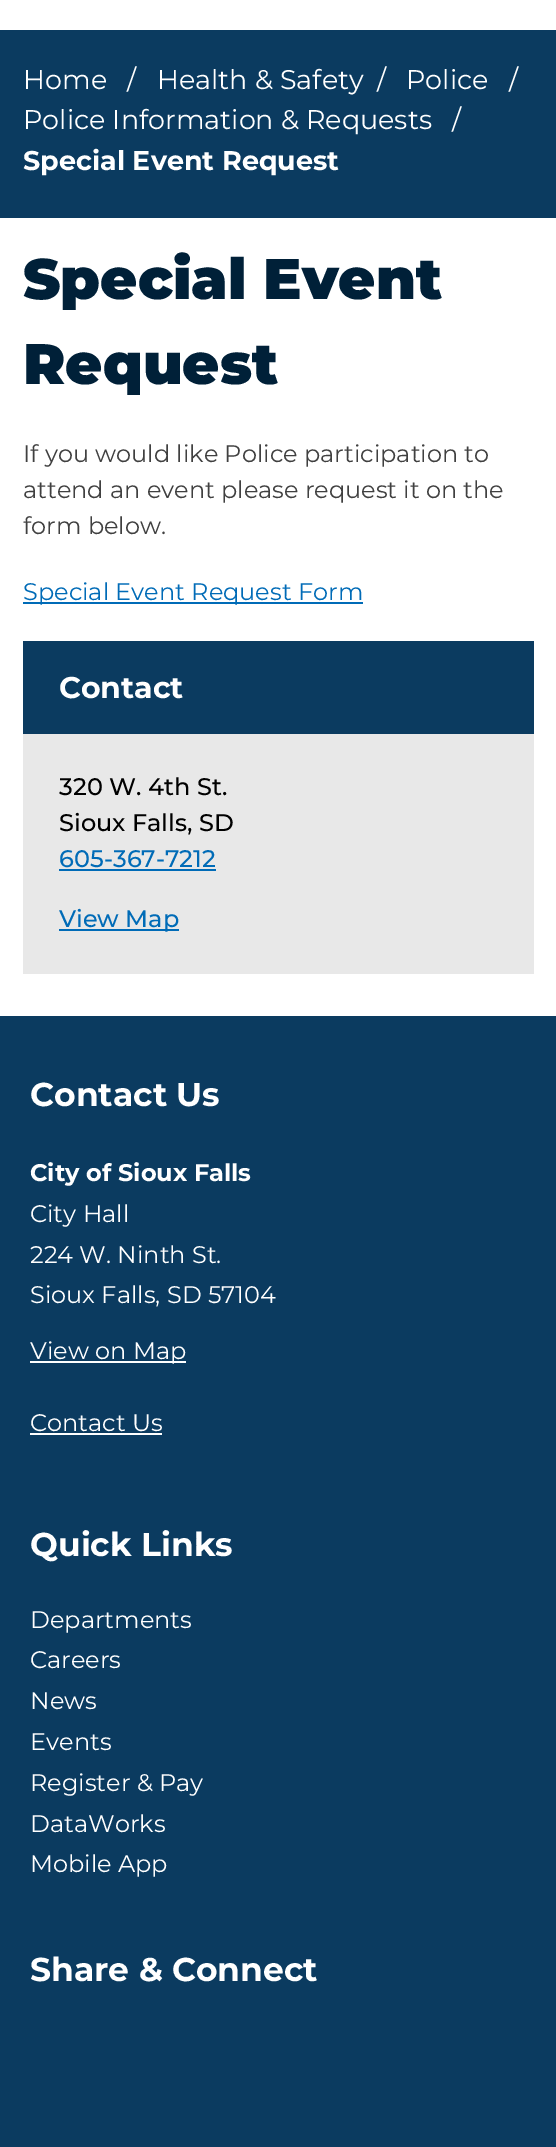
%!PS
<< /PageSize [556 2147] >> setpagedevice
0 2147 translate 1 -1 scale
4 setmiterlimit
1 setgray
0 0 556 2147 rectfill
0.043 0.231 0.376 setrgbcolor
0 30 556 188 rectfill
/Montserrat-Regular [27 0 0 -27 0 0] selectfont
1 setgray
23 89 moveto (Home) show
127 89 moveto (/) show
157 89 moveto (Health & Safety) show
377 89 moveto (/) show
406 89 moveto (Police) show
509 89 moveto (/) show
23 129 moveto (Police Information & Requests) show
452 129 moveto (/) show
/Montserrat-Bold [27 0 0 -27 0 0] selectfont
23 170 moveto (Special Event Request) show
/Montserrat-Black [57 0 0 -57 0 0] selectfont
0 0.125 0.22 setrgbcolor
23 299 moveto (Special Event) show
23 384 moveto (Request) show
/Montserrat-Regular [24 0 0 -24 0 0] selectfont
0.251 setgray
23 462 moveto (If you would like Police participation to) show
23 498 moveto (attend an event please request it on the) show
23 534 moveto (form below.) show
0 0.42 0.718 setrgbcolor
23 602 340 2 rectfill
23 600 moveto (Special Event Request Form) show
0.91 setgray
23 734 511 240 rectfill
0.043 0.231 0.376 setrgbcolor
23 641 511 93 rectfill
/Montserrat-Bold [30 0 0 -30 0 0] selectfont
1 setgray
59 698 moveto (Contact) show
/Montserrat-Medium [24 0 0 -24 0 0] selectfont
0 setgray
59 795 moveto (320 W. 4th St.) show
59 831 moveto (Sioux Falls, SD) show
0 0.42 0.718 setrgbcolor
59 867 moveto (605-367-7212) show
59 869 157 2 rectfill
59 929 120 2 rectfill
59 927 moveto (View Map) show
0.043 0.231 0.376 setrgbcolor
0 1016 556 1131 rectfill
/Montserrat-Bold [33 0 0 -33 0 0] selectfont
1 setgray
30 1106 moveto (Contact Us) show
/Montserrat-Bold [24 0 0 -24 0 0] selectfont
30 1181 moveto (City of Sioux Falls) show
/Montserrat-Regular [24 0 0 -24 0 0] selectfont
30 1222 moveto (City Hall) show
30 1263 moveto (224 W. Ninth St.) show
30 1303 moveto (Sioux Falls, SD 57104) show
30 1361 156 2 rectfill
30 1359 moveto (View on Map) show
30 1431 moveto (Contact Us) show
30 1433 132 2 rectfill
/Montserrat-Bold [33 0 0 -33 0 0] selectfont
30 1556 moveto (Quick Links) show
/Montserrat-Regular [24 0 0 -24 0 0] selectfont
30 1628 moveto (Departments) show
30 1668 moveto (Careers) show
30 1709 moveto (News) show
30 1750 moveto (Events) show
30 1791 moveto (Register & Pay) show
30 1832 moveto (DataWorks) show
30 1872 moveto (Mobile App) show
/Montserrat-Bold [33 0 0 -33 0 0] selectfont
30 1981 moveto (Share & Connect) show
showpage
